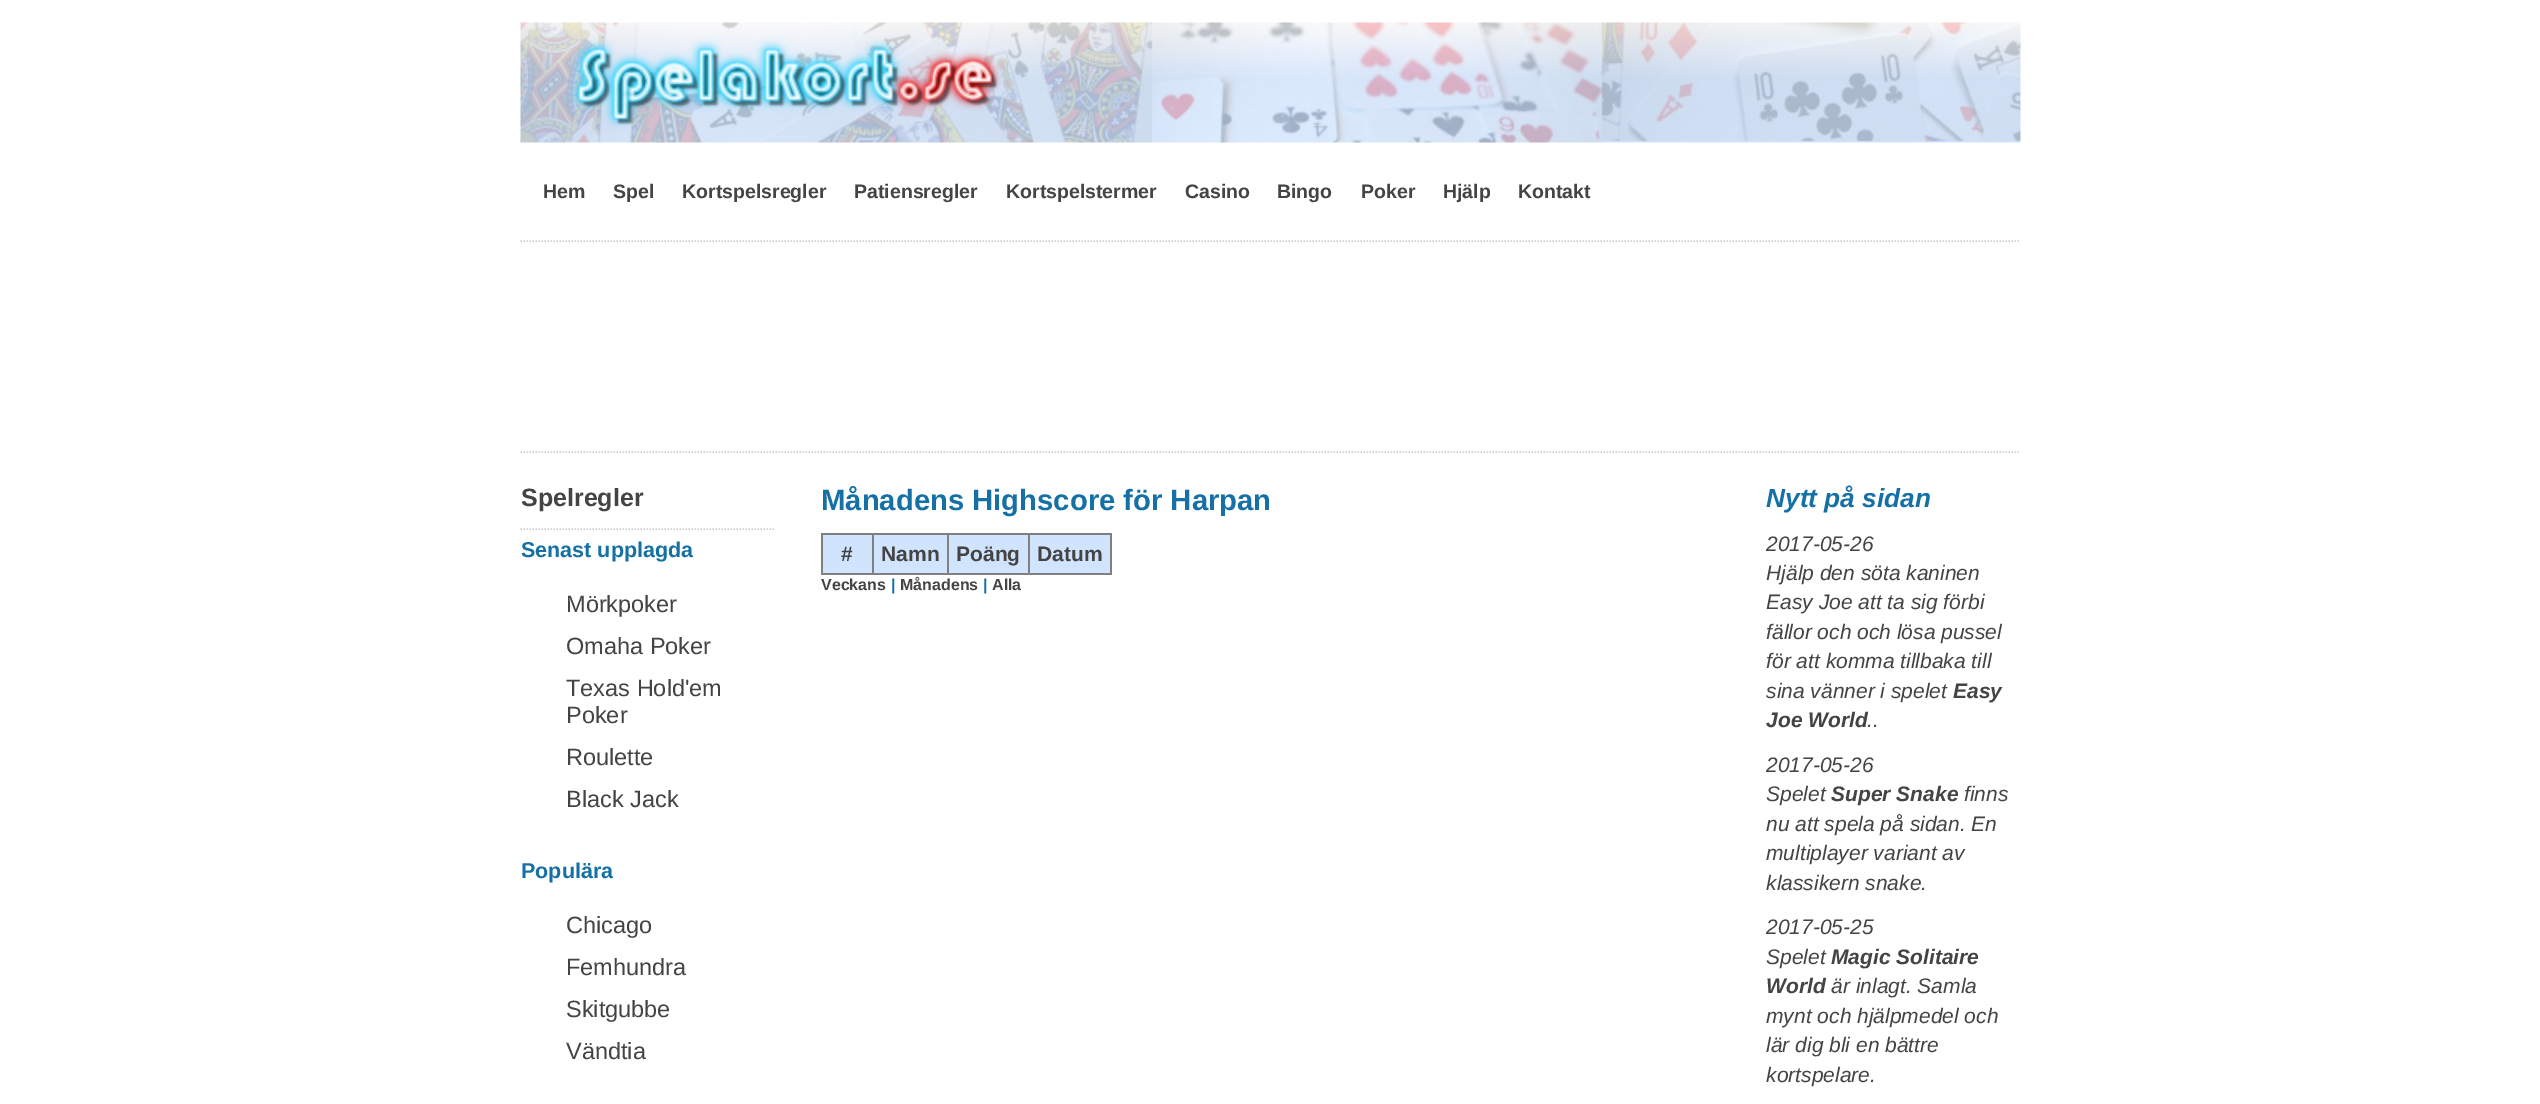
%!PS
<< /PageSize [2540 1104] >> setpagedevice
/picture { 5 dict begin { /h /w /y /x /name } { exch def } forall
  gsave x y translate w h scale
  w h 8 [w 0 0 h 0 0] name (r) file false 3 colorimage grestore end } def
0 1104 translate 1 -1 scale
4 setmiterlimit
1 setgray
0 0 2540 1104 rectfill
(img1.rgb) 520 22 1501 121 picture
/LiberationSans-Bold [19.5 0 0 -19.5 0 0] selectfont
0.267 setgray
543 198 moveto (Hem) show
613 198 moveto (Spel) show
682 198 moveto (Kortspelsregler) show
854 198 moveto (Patiensregler) show
1006 198 moveto (Kortspelstermer) show
1185 198 moveto (Casino) show
1277 198 moveto (Bingo) show
1361 198 moveto (Poker) show
1443 198 moveto (Hjälp) show
1518 198 moveto (Kontakt) show
0.816 setgray
1.5 setlinewidth
[1.5 1.5] 0 setdash
newpath 520.5 241 moveto 2020.5 241 lineto stroke
newpath 520.5 452 moveto 2020.5 452 lineto stroke
/LiberationSans-Bold [25 0 0 -25 0 0] selectfont
0.267 setgray
521 506 moveto (Spelregler) show
0.816 setgray
newpath 520.5 529 moveto 775.5 529 lineto stroke
/LiberationSans-Bold [21.5 0 0 -21.5 0 0] selectfont
0.082 0.439 0.651 setrgbcolor
521 557 moveto (Senast upplagda) show
/LiberationSans-Regular [23.5 0 0 -23.5 0 0] selectfont
0.267 setgray
566 612 moveto (Mörkpoker) show
566 654 moveto (Omaha Poker) show
566 696 moveto (Texas Hold'em) show
566 723 moveto (Poker) show
566 765 moveto (Roulette) show
566 807 moveto (Black Jack) show
/LiberationSans-Bold [21.5 0 0 -21.5 0 0] selectfont
0.082 0.439 0.651 setrgbcolor
521 878 moveto (Populära) show
/LiberationSans-Regular [23.5 0 0 -23.5 0 0] selectfont
0.267 setgray
566 933 moveto (Chicago) show
566 975 moveto (Femhundra) show
566 1017 moveto (Skitgubbe) show
566 1059 moveto (Vändtia) show
/LiberationSans-Bold [29.25 0 0 -29.25 0 0] selectfont
0.082 0.439 0.651 setrgbcolor
821 510 moveto (Månadens Highscore för Harpan) show
0.502 setgray
821 533 291 2 rectfill
1110 533 2 42 rectfill
821 573 291 2 rectfill
821 533 2 42 rectfill
0.816 0.894 0.996 setrgbcolor
823 535 49 38 rectfill
/LiberationSans-Bold [21 0 0 -21 0 0] selectfont
0.267 setgray
841 561 moveto (#) show
0.816 0.894 0.996 setrgbcolor
874 535 73 38 rectfill
0.502 setgray
872 533 2 42 rectfill
0.267 setgray
881 561 moveto (Namn) show
0.816 0.894 0.996 setrgbcolor
949 535 79 38 rectfill
0.502 setgray
947 533 2 42 rectfill
0.267 setgray
956 561 moveto (Poäng) show
0.816 0.894 0.996 setrgbcolor
1030 535 80 38 rectfill
0.502 setgray
1028 533 2 42 rectfill
0.267 setgray
1037 561 moveto (Datum) show
/LiberationSans-Bold [16 0 0 -16 0 0] selectfont
821 590 moveto (Veckans) show
0.082 0.439 0.651 setrgbcolor
891 590 moveto (|) show
0.267 setgray
900 590 moveto (Månadens) show
0.082 0.439 0.651 setrgbcolor
983 590 moveto (|) show
0.267 setgray
992 590 moveto (Alla) show
/LiberationSans-BoldItalic [26.25 0 0 -26.25 0 0] selectfont
0.082 0.439 0.651 setrgbcolor
1766 507 moveto (Nytt på sidan) show
/LiberationSans-Italic [21 0 0 -21 0 0] selectfont
0.267 setgray
1766 551 moveto (2017-05-26) show
1766 580 moveto (Hjälp den söta kaninen) show
1766 609 moveto (Easy Joe att ta sig förbi) show
1766 639 moveto (fällor och och lösa pussel) show
1766 668 moveto (för att komma tillbaka till) show
1766 698 moveto (sina vänner i spelet) show
/LiberationSans-BoldItalic [21 0 0 -21 0 0] selectfont
1953 698 moveto (Easy) show
1766 727 moveto (Joe World) show
/LiberationSans-Italic [21 0 0 -21 0 0] selectfont
1867 727 moveto (..) show
1766 772 moveto (2017-05-26) show
1766 801 moveto (Spelet) show
/LiberationSans-BoldItalic [21 0 0 -21 0 0] selectfont
1831 801 moveto (Super Snake) show
/LiberationSans-Italic [21 0 0 -21 0 0] selectfont
1964 801 moveto (finns) show
1766 831 moveto (nu att spela på sidan. En) show
1766 860 moveto (multiplayer variant av) show
1766 890 moveto (klassikern snake.) show
1766 934 moveto (2017-05-25) show
1766 964 moveto (Spelet) show
/LiberationSans-BoldItalic [21 0 0 -21 0 0] selectfont
1831 964 moveto (Magic Solitaire) show
1766 993 moveto (World) show
/LiberationSans-Italic [21 0 0 -21 0 0] selectfont
1831 993 moveto (är inlagt. Samla) show
1766 1023 moveto (mynt och hjälpmedel och) show
1766 1052 moveto (lär dig bli en bättre) show
1766 1082 moveto (kortspelare.) show
showpage
